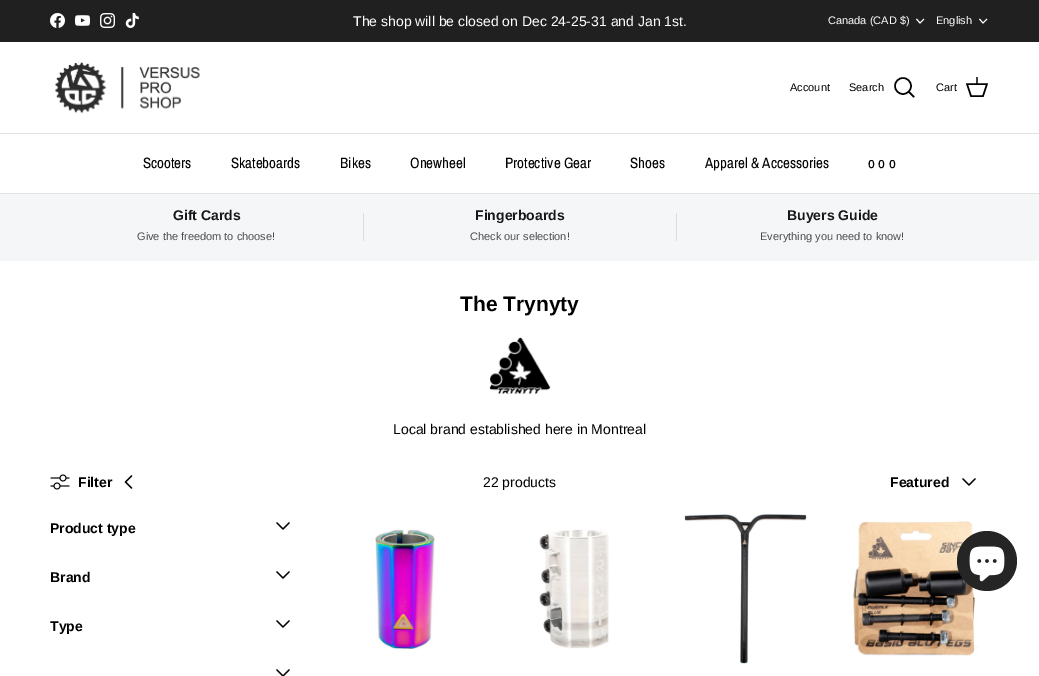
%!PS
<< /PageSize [1039 676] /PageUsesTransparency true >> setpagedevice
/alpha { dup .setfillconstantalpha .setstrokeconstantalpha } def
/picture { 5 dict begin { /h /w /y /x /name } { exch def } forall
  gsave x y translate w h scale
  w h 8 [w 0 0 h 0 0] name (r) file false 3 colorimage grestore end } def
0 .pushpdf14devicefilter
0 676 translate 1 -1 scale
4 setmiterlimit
1 setgray
0 0 1039 676 rectfill
0.125 setgray
0 0 1039 42 rectfill
(img1.rgb) 50 13 15 15 picture
(img2.rgb) 75 15 15 11 picture
(img3.rgb) 100 13 15 15 picture
(img4.rgb) 125 13 14 15 picture
/LiberationSans-Regular [14 0 0 -14 0 0] selectfont
1 setgray
353 26 moveto (The shop will be closed on Dec 24-25-31 and Jan 1st.) show
/LiberationSans-Regular [11 0 0 -11 0 0] selectfont
828 24 moveto (Canada \(CAD $\)) show
newpath 924 19 moveto 920 23 lineto 916.5 19 lineto stroke
936 24 moveto (English) show
newpath 987 19 moveto 983 23 lineto 979.5 19 lineto stroke
0.886 setgray
0 133 1039 1 rectfill
(img5.rgb) 55 62 145 51 picture
0 setgray
790 91 moveto (Account) show
849 91 moveto (Search) show
1.5 setlinewidth
newpath 903 86 8 0 360 arc closepath stroke
2 setlinecap
newpath 909 92 moveto 913.5 96.5 lineto stroke
936 91 moveto (Cart) show
0 setlinecap
newpath 967 84 moveto 987 84 lineto 983 96 lineto 971 96 lineto closepath stroke
0.75 alpha
976 77 2 8 rectfill
1 alpha
0.886 setgray
0 193 1039 1 rectfill
/ArchivoNarrow-Regular [15 0 0 -15 0 0] selectfont
0 setgray
143 168 moveto (Scooters) show
231 168 moveto (Skateboards) show
340 168 moveto (Bikes) show
410 168 moveto (Onewheel) show
505 168 moveto (Protective Gear) show
630 168 moveto (Shoes) show
705 168 moveto (Apparel & Accessories) show
868 168 moveto (o o o) show
0.957 0.965 0.973 setrgbcolor
0 194 1039 67 rectfill
/LiberationSans-Bold [14 0 0 -14 0 0] selectfont
0.09 setgray
173 220 moveto (Gift Cards) show
/LiberationSans-Regular [11 0 0 -11 0 0] selectfont
0.298 0.298 0.294 setrgbcolor
137 240 moveto (Give the freedom to choose!) show
0.859 0.867 0.871 setrgbcolor
363 213 1 28 rectfill
/LiberationSans-Bold [14 0 0 -14 0 0] selectfont
0.09 setgray
475 220 moveto (Fingerboards) show
/LiberationSans-Regular [11 0 0 -11 0 0] selectfont
0.298 0.298 0.294 setrgbcolor
470 240 moveto (Check our selection!) show
0.859 0.867 0.871 setrgbcolor
676 213 1 28 rectfill
/LiberationSans-Bold [14 0 0 -14 0 0] selectfont
0.09 setgray
787 220 moveto (Buyers Guide) show
/LiberationSans-Regular [11 0 0 -11 0 0] selectfont
0.298 0.298 0.294 setrgbcolor
760 240 moveto (Everything you need to know!) show
/LiberationSans-Bold [21 0 0 -21 0 0] selectfont
0 setgray
460 311 moveto (The Trynyty) show
(img6.rgb) 489 337 62 58 picture
/LiberationSans-Regular [14 0 0 -14 0 0] selectfont
393 434 moveto (Local brand established here in Montreal) show
(img7.rgb) 50 474 20 16 picture
/LiberationSans-Bold [14 0 0 -14 0 0] selectfont
78 487 moveto (Filter) show
1.3 setlinewidth
1 setlinecap
1 setlinejoin
newpath 131.5 476 moveto 125.5 482 lineto 131.5 488 lineto stroke
/LiberationSans-Regular [14 0 0 -14 0 0] selectfont
483 487 moveto (22 products) show
/LiberationSans-Bold [14 0 0 -14 0 0] selectfont
890 487 moveto (Featured) show
newpath 963 479 moveto 969 485 lineto 975 479 lineto stroke
50 533 moveto (Product type) show
newpath 277 523 moveto 283 529 lineto 289 523 lineto 277 572 moveto 283 578 lineto 289 572 lineto stroke
50 582 moveto (Brand) show
50 631 moveto (Type) show
newpath 277 621 moveto 283 627 lineto 289 621 lineto 277 670 moveto 283 676 lineto 289 670 lineto stroke
(img8.rgb) 375 529 61 121 picture
(img9.rgb) 539 529 70 120 picture
(img10.rgb) 684 514 123 150 picture
(img11.rgb) 845 521 134 135 picture
0.145 setgray
newpath 987 561 30 0 360 arc closepath fill
(img12.rgb) 969 546 36 36 picture
.poppdf14devicefilter showpage
